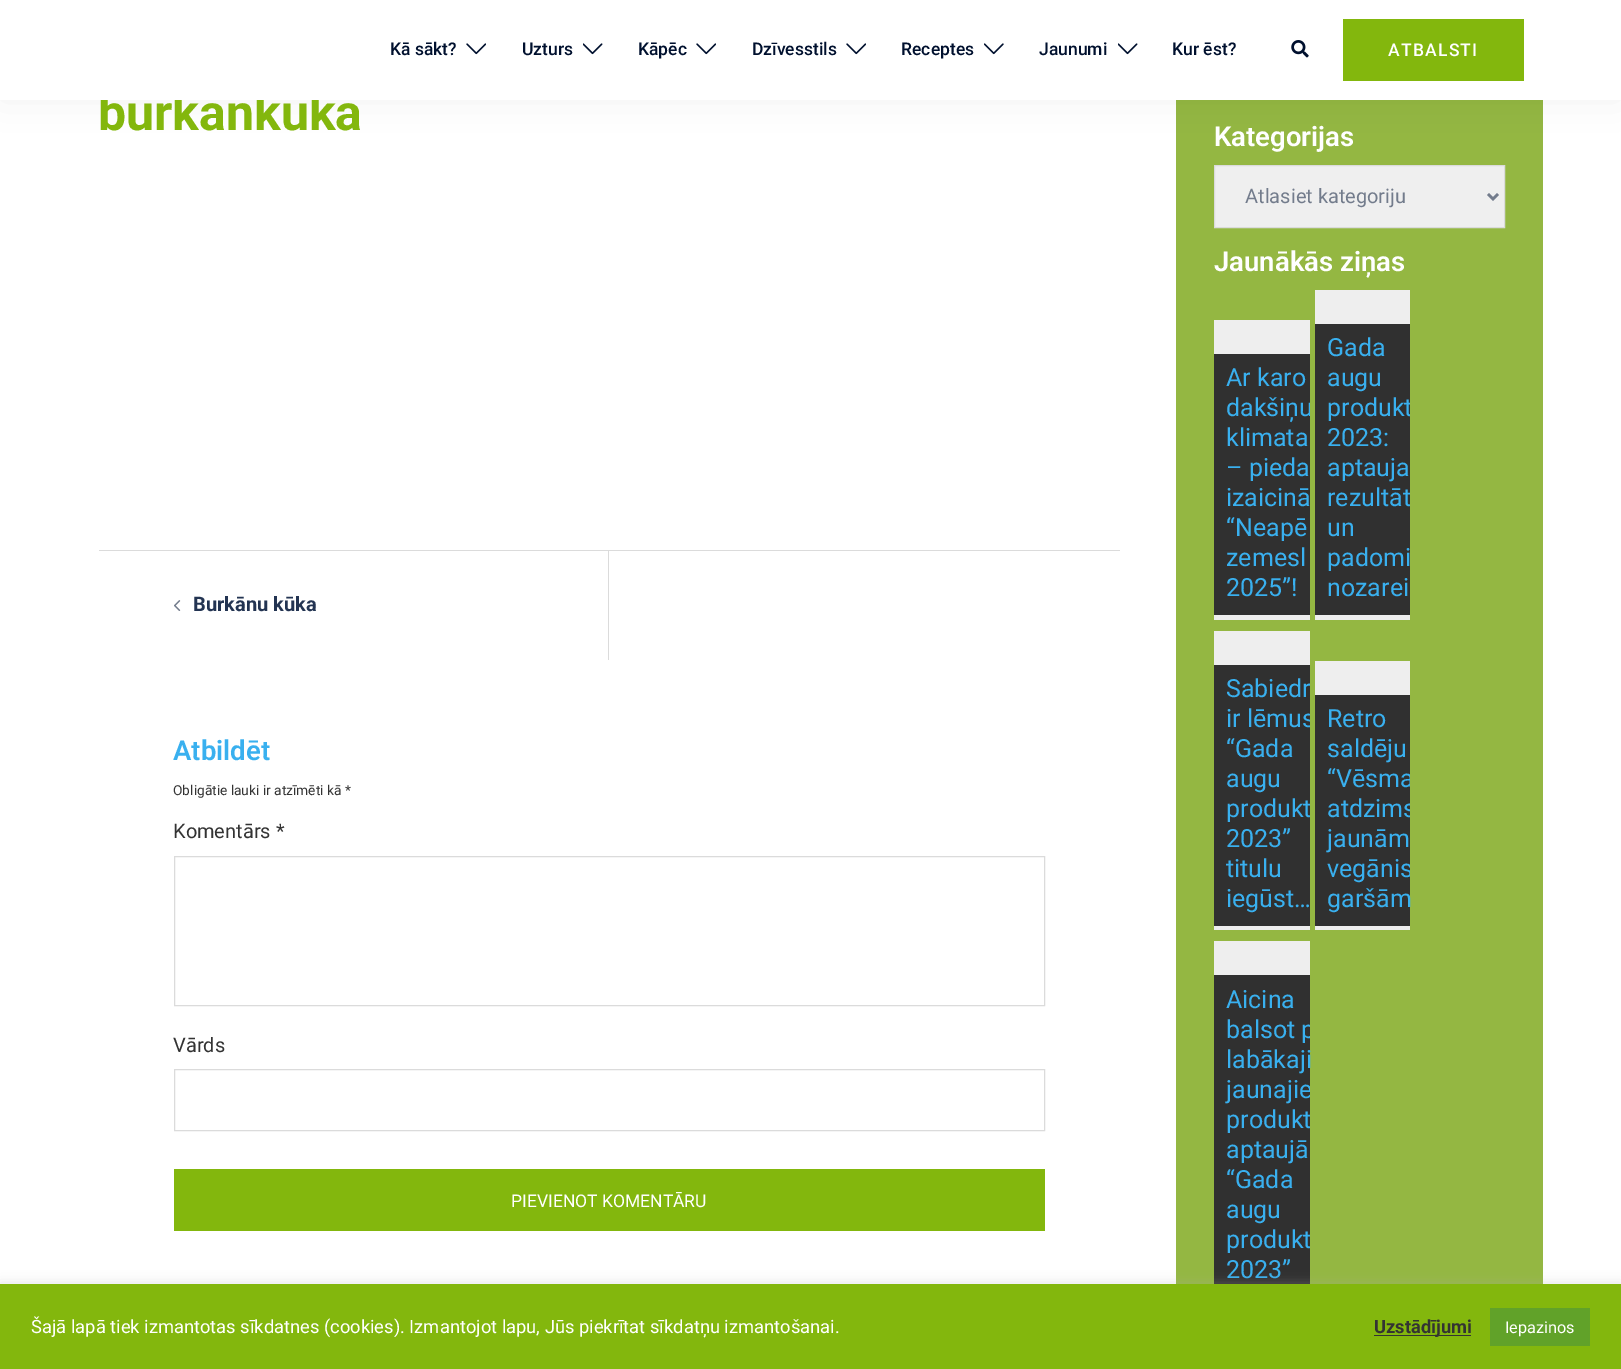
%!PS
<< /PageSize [1621 1369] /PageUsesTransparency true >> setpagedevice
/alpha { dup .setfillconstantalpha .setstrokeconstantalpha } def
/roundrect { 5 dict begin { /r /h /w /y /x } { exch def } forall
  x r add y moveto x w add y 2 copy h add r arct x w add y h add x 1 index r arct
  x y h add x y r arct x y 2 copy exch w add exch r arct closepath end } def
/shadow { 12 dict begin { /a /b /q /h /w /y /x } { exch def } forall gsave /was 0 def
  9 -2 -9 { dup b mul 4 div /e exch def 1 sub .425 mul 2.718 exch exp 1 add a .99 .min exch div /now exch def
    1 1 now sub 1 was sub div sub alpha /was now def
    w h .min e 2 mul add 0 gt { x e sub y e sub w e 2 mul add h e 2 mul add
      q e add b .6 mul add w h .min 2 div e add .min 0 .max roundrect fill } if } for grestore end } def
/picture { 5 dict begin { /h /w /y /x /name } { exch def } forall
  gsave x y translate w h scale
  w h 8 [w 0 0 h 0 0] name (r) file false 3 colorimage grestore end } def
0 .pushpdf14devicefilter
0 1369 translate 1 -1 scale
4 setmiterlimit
1 setgray
0 0 1621 1369 rectfill
0.58 0.718 0.259 setrgbcolor
1176 100 367 1184 rectfill
0 setgray
0 0 1621 100 0 19 0.05 shadow
/Roboto-Bold [50 0 0 -50 0 0] selectfont
0.514 0.718 0.051 setrgbcolor
98 130 moveto (burkānkūka) show
1 setgray
0 0 1621 100 rectfill
/Roboto-Medium [17.5 0 0 -17.5 0 0] selectfont
0 0.063 0.18 setrgbcolor
390 55 moveto (Kā sākt?) show
(img1.rgb) 466 43 20 12 picture
522 55 moveto (Uzturs) show
(img2.rgb) 583 43 20 12 picture
638 55 moveto (Kāpēc) show
(img1.rgb) 696 43 20 12 picture
752 55 moveto (Dzīvesstils) show
(img1.rgb) 846 43 20 12 picture
901 55 moveto (Receptes) show
(img3.rgb) 984 43 20 12 picture
1039 55 moveto (Jaunumi) show
(img2.rgb) 1118 43 20 12 picture
1172 55 moveto (Kur ēst?) show
(img4.rgb) 1291 40 18 18 picture
0.514 0.718 0.051 setrgbcolor
1343 19 181 62 rectfill
1 setgray
1388 56 moveto 1.25 0 (ATBALSTI) ashow
0.859 setgray
99 550 1021 1 rectfill
608 551 1 109 rectfill
(img5.rgb) 174 600 7 11 picture
/Roboto-Bold [20 0 0 -20 0 0] selectfont
0.137 0.204 0.322 setrgbcolor
193 611 moveto (Burkānu kūka) show
/Roboto-SemiBold [27.5 0 0 -27.5 0 0] selectfont
0.224 0.69 0.937 setrgbcolor
173 760 moveto (Atbildēt) show
/Roboto-Regular [13.75 0 0 -13.75 0 0] selectfont
0.2 setgray
173 795 moveto (Obligātie lauki ir atzīmēti kā *) show
/Roboto-Regular [20 0 0 -20 0 0] selectfont
173 838 moveto (Komentārs *) show
0.859 setgray
174.5 856.5 870 149 rectstroke
0.2 setgray
173 1052 moveto (Vārds) show
0.859 setgray
174.5 1069.5 870 61 rectstroke
0.514 0.718 0.051 setrgbcolor
174 1169 871 62 rectfill
/Roboto-Regular [17.5 0 0 -17.5 0 0] selectfont
1 setgray
511 1207 moveto (PIEVIENOT KOMENTĀRU) show
/Roboto-SemiBold [27.5 0 0 -27.5 0 0] selectfont
1214 146 moveto (Kategorijas) show
0.937 setgray
newpath 1214.5 165.5 moveto 1504.5 165.5 lineto 1504.5 227.5 lineto 1214.5 227.5 lineto closepath gsave fill grestore
0.859 setgray
stroke
0.451 0.486 0.549 setrgbcolor
2.5 setlinewidth
newpath 1488 194 moveto 1493 199 lineto 1498 194 lineto stroke
/Roboto-Regular [20 0 0 -20 0 0] selectfont
1245 203 moveto (Atlasiet kategoriju) show
/Roboto-SemiBold [27.5 0 0 -27.5 0 0] selectfont
1 setgray
1214 271 moveto (Jaunākās ziņas) show
0.933 setgray
1214 320 96 300 rectfill
0.188 setgray
1214 354 96 261 rectfill
/Roboto-Regular [25 0 0 -25 0 0] selectfont
0.224 0.69 0.937 setrgbcolor
1226 386 moveto (Ar karo) show
gsave
1220 360 90 249 rectclip
1226 416 moveto (dakšiņu) show
grestore
1226 446 moveto (klimata) show
1226 476 moveto (– pieda) show
1226 506 moveto (izaicinā) show
1226 536 moveto (“Neapē) show
1226 566 moveto (zemesl) show
1226 596 moveto (2025”!) show
0.933 setgray
1315 290 95 330 rectfill
0.188 setgray
1315 324 95 291 rectfill
0.224 0.69 0.937 setrgbcolor
1327 356 moveto (Gada) show
1327 386 moveto (augu) show
gsave
1321 330 89 279 rectclip
1327 416 moveto (produkt) show
grestore
1327 446 moveto (2023:) show
1327 476 moveto (aptauja) show
gsave
1321 330 89 279 rectclip
1327 506 moveto (rezultāt) show
grestore
1327 536 moveto (un) show
1327 566 moveto (padomi) show
1327 596 moveto (nozarei) show
0.933 setgray
1214 631 96 299 rectfill
0.188 setgray
1214 665 96 261 rectfill
gsave
1220 671 90 249 rectclip
0.224 0.69 0.937 setrgbcolor
1226 697 moveto (Sabiedr) show
1226 727 moveto (ir lēmus) show
grestore
0.224 0.69 0.937 setrgbcolor
1226 757 moveto (“Gada) show
1226 787 moveto (augu) show
gsave
1220 671 90 249 rectclip
1226 817 moveto (produkt) show
grestore
1226 847 moveto (2023”) show
1226 877 moveto (titulu) show
1226 907 moveto (iegūst…) show
0.933 setgray
1315 661 95 269 rectfill
0.188 setgray
1315 695 95 231 rectfill
0.224 0.69 0.937 setrgbcolor
1327 727 moveto (Retro) show
1327 757 moveto (saldēju) show
gsave
1321 701 89 219 rectclip
1327 787 moveto (“Vēsma) show
1327 817 moveto (atdzims) show
grestore
1327 847 moveto (jaunām) show
gsave
1321 701 89 219 rectclip
1327 877 moveto (vegānis) show
grestore
1327 907 moveto (garšām) show
0.933 setgray
1214 941 96 34 rectfill
0.188 setgray
1214 975 96 309 rectfill
0.224 0.69 0.937 setrgbcolor
1226 1008 moveto (Aicina) show
gsave
1220 981 90 309 rectclip
1226 1038 moveto (balsot p) show
grestore
1226 1068 moveto (labākaji) show
gsave
1220 981 90 309 rectclip
1226 1098 moveto (jaunajie) show
1226 1128 moveto (produkt) show
grestore
1226 1158 moveto (aptaujā) show
1226 1188 moveto (“Gada) show
1226 1218 moveto (augu) show
gsave
1220 981 90 309 rectclip
1226 1248 moveto (produkt) show
grestore
1226 1278 moveto (2023”) show
0.675 0.671 0.671 setrgbcolor
0 1283 1621 86 0 6 0.3 shadow
0.514 0.718 0.051 setrgbcolor
0 1284 1621 85 rectfill
/Roboto-Regular [18.35 0 0 -18.35 0 0] selectfont
1 setgray
31 1333 moveto (Šajā lapā tiek izmantotas sīkdatnes \(cookies\). Izmantojot lapu, Jūs piekrītat sīkdatņu izmantošanai.) show
0.2 setgray
1374 1335 97 1 rectfill
/Roboto-Bold [18.35 0 0 -18.35 0 0] selectfont
1374 1333 moveto (Uzstādījumi) show
0.38 0.635 0.161 setrgbcolor
1490 1308 100 38 rectfill
/Roboto-Regular [16.25 0 0 -16.25 0 0] selectfont
1 setgray
1505 1333 moveto (Iepazinos) show
.poppdf14devicefilter showpage
